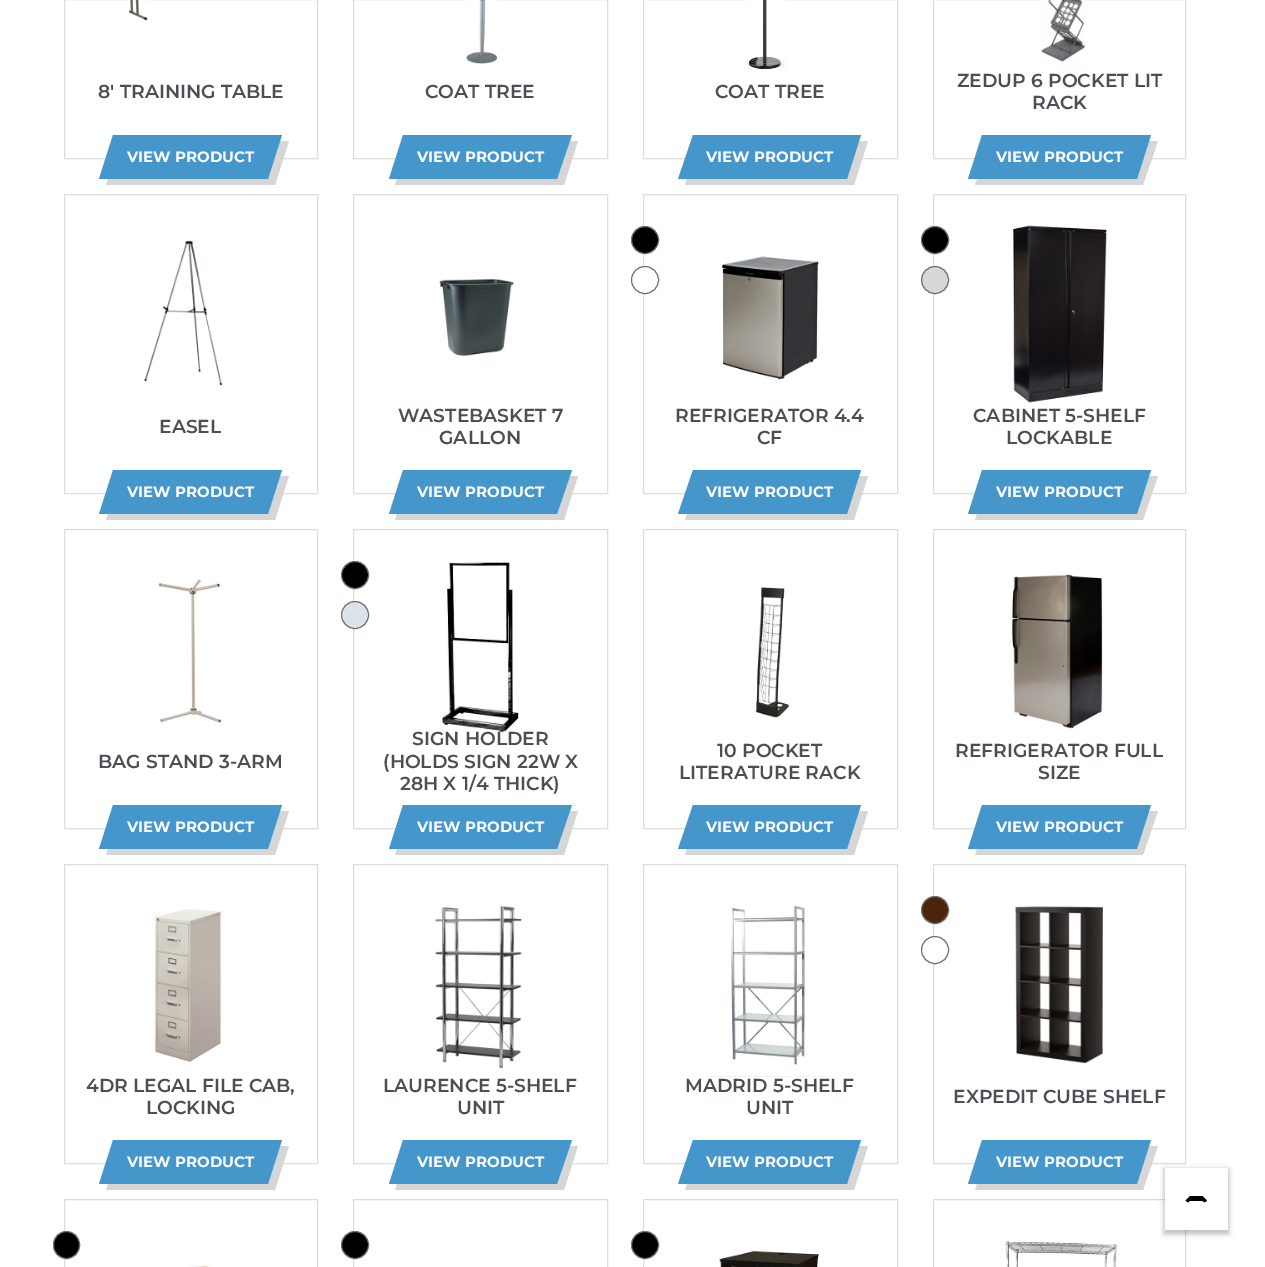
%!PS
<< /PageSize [1265 1267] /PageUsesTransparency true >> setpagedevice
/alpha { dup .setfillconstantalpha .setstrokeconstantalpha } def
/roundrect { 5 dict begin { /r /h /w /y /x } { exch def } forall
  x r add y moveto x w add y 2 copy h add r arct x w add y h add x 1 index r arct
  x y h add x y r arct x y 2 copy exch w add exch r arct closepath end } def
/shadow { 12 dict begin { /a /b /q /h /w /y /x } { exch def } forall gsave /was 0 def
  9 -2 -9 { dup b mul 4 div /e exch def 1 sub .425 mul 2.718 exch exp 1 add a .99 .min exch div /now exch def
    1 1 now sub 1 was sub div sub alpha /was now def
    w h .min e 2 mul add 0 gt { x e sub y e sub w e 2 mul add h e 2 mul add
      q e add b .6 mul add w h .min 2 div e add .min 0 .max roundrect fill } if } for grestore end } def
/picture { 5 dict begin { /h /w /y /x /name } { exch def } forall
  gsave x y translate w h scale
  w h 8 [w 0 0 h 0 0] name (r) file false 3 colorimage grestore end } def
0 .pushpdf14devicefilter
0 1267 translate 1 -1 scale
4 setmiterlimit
1 setgray
0 0 1265 1267 rectfill
0.867 setgray
64.5 -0.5 253 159 rectstroke
(img1.rgb) 128 0 20 21 picture
/Montserrat-SemiBold [18.75 0 0 -18.75 0 0] selectfont
0.294 0.31 0.329 setrgbcolor
98 98 moveto (8′ TRAINING TABLE) show
0.839 setgray
newpath 108 179 moveto 106 185 lineto 275 185 lineto 289 141 lineto 280 141 lineto 268 179 lineto closepath fill
0.271 0.592 0.796 setrgbcolor
newpath 113 135 moveto 282 135 lineto 268 179 lineto 99 179 lineto closepath fill
/Montserrat-Bold [15 0 0 -15 0 0] selectfont
1 setgray
127 162 moveto (VIEW PRODUCT) show
0.867 setgray
353.5 -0.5 254 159 rectstroke
(img2.rgb) 466 0 32 64 picture
/Montserrat-SemiBold [18.75 0 0 -18.75 0 0] selectfont
0.294 0.31 0.329 setrgbcolor
425 98 moveto (COAT TREE) show
0.839 setgray
newpath 397 179 moveto 395 185 lineto 564 185 lineto 578 141 lineto 570 141 lineto 557 179 lineto closepath fill
0.271 0.592 0.796 setrgbcolor
newpath 403 135 moveto 572 135 lineto 557 179 lineto 389 179 lineto closepath fill
/Montserrat-Bold [15 0 0 -15 0 0] selectfont
1 setgray
417 162 moveto (VIEW PRODUCT) show
0.867 setgray
643.5 -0.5 254 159 rectstroke
(img3.rgb) 747 0 39 70 picture
/Montserrat-SemiBold [18.75 0 0 -18.75 0 0] selectfont
0.294 0.31 0.329 setrgbcolor
715 98 moveto (COAT TREE) show
0.839 setgray
newpath 687 179 moveto 685 185 lineto 854 185 lineto 868 141 lineto 859 141 lineto 847 179 lineto closepath fill
0.271 0.592 0.796 setrgbcolor
newpath 693 135 moveto 861 135 lineto 847 179 lineto 678 179 lineto closepath fill
/Montserrat-Bold [15 0 0 -15 0 0] selectfont
1 setgray
706 162 moveto (VIEW PRODUCT) show
0.867 setgray
933.5 -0.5 252 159 rectstroke
(img4.rgb) 1041 0 44 62 picture
/Montserrat-SemiBold [18.75 0 0 -18.75 0 0] selectfont
0.294 0.31 0.329 setrgbcolor
957 87 moveto (ZEDUP 6 POCKET LIT) show
1032 109 moveto (RACK) show
0.839 setgray
newpath 977 179 moveto 975 185 lineto 1143 185 lineto 1158 141 lineto 1149 141 lineto 1137 179 lineto closepath fill
0.271 0.592 0.796 setrgbcolor
newpath 982 135 moveto 1151 135 lineto 1137 179 lineto 968 179 lineto closepath fill
/Montserrat-Bold [15 0 0 -15 0 0] selectfont
1 setgray
996 162 moveto (VIEW PRODUCT) show
0.867 setgray
64.5 194.5 253 299 rectstroke
(img5.rgb) 144 240 79 146 picture
/Montserrat-SemiBold [18.75 0 0 -18.75 0 0] selectfont
0.294 0.31 0.329 setrgbcolor
159 433 moveto (EASEL) show
0.839 setgray
newpath 108 514 moveto 106 520 lineto 275 520 lineto 289 476 lineto 280 476 lineto 268 514 lineto closepath fill
0.271 0.592 0.796 setrgbcolor
newpath 113 470 moveto 282 470 lineto 268 514 lineto 99 514 lineto closepath fill
/Montserrat-Bold [15 0 0 -15 0 0] selectfont
1 setgray
127 497 moveto (VIEW PRODUCT) show
0.867 setgray
353.5 194.5 254 299 rectstroke
(img6.rgb) 439 279 75 78 picture
/Montserrat-SemiBold [18.75 0 0 -18.75 0 0] selectfont
0.294 0.31 0.329 setrgbcolor
398 422 moveto (WASTEBASKET 7) show
439 444 moveto (GALLON) show
0.839 setgray
newpath 397 514 moveto 395 520 lineto 564 520 lineto 578 476 lineto 570 476 lineto 557 514 lineto closepath fill
0.271 0.592 0.796 setrgbcolor
newpath 403 470 moveto 572 470 lineto 557 514 lineto 389 514 lineto closepath fill
/Montserrat-Bold [15 0 0 -15 0 0] selectfont
1 setgray
417 497 moveto (VIEW PRODUCT) show
0.867 setgray
643.5 194.5 254 299 rectstroke
0 setgray
newpath 645 240 13.5 0 360 arc closepath gsave fill grestore
0.439 setgray
stroke
1 setgray
newpath 645 280 13.5 0 360 arc closepath gsave fill grestore
0.439 setgray
stroke
(img7.rgb) 722 256 97 124 picture
/Montserrat-SemiBold [18.75 0 0 -18.75 0 0] selectfont
0.294 0.31 0.329 setrgbcolor
675 422 moveto (REFRIGERATOR 4.4) show
757 444 moveto (CF) show
0.839 setgray
newpath 687 514 moveto 685 520 lineto 854 520 lineto 868 476 lineto 859 476 lineto 847 514 lineto closepath fill
0.271 0.592 0.796 setrgbcolor
newpath 693 470 moveto 861 470 lineto 847 514 lineto 678 514 lineto closepath fill
/Montserrat-Bold [15 0 0 -15 0 0] selectfont
1 setgray
706 497 moveto (VIEW PRODUCT) show
0.867 setgray
933.5 194.5 252 299 rectstroke
0 setgray
newpath 935 240 13.5 0 360 arc closepath gsave fill grestore
0.439 setgray
stroke
0.839 0.843 0.851 setrgbcolor
newpath 935 280 13.5 0 360 arc closepath gsave fill grestore
0.439 setgray
stroke
(img8.rgb) 1013 225 94 178 picture
/Montserrat-SemiBold [18.75 0 0 -18.75 0 0] selectfont
0.294 0.31 0.329 setrgbcolor
973 422 moveto (CABINET 5-SHELF) show
1006 444 moveto (LOCKABLE) show
0.839 setgray
newpath 977 514 moveto 975 520 lineto 1143 520 lineto 1158 476 lineto 1149 476 lineto 1137 514 lineto closepath fill
0.271 0.592 0.796 setrgbcolor
newpath 982 470 moveto 1151 470 lineto 1137 514 lineto 968 514 lineto closepath fill
/Montserrat-Bold [15 0 0 -15 0 0] selectfont
1 setgray
996 497 moveto (VIEW PRODUCT) show
0.867 setgray
64.5 529.5 253 299 rectstroke
(img9.rgb) 158 579 64 144 picture
/Montserrat-SemiBold [18.75 0 0 -18.75 0 0] selectfont
0.294 0.31 0.329 setrgbcolor
98 768 moveto (BAG STAND 3-ARM) show
0.839 setgray
newpath 108 849 moveto 106 855 lineto 275 855 lineto 289 811 lineto 280 811 lineto 268 849 lineto closepath fill
0.271 0.592 0.796 setrgbcolor
newpath 113 805 moveto 282 805 lineto 268 849 lineto 99 849 lineto closepath fill
/Montserrat-Bold [15 0 0 -15 0 0] selectfont
1 setgray
127 832 moveto (VIEW PRODUCT) show
0.867 setgray
353.5 529.5 254 299 rectstroke
0 setgray
newpath 355 575 13.5 0 360 arc closepath gsave fill grestore
0.439 setgray
stroke
0.859 0.886 0.914 setrgbcolor
newpath 355 615 13.5 0 360 arc closepath gsave fill grestore
0.439 setgray
stroke
(img10.rgb) 441 562 78 171 picture
/Montserrat-SemiBold [18.75 0 0 -18.75 0 0] selectfont
0.294 0.31 0.329 setrgbcolor
412 745 moveto (SIGN HOLDER) show
383 768 moveto (\(HOLDS SIGN 22W X) show
400 790 moveto (28H X 1/4 THICK\)) show
0.839 setgray
newpath 397 849 moveto 395 855 lineto 564 855 lineto 578 811 lineto 570 811 lineto 557 849 lineto closepath fill
0.271 0.592 0.796 setrgbcolor
newpath 403 805 moveto 572 805 lineto 557 849 lineto 389 849 lineto closepath fill
/Montserrat-Bold [15 0 0 -15 0 0] selectfont
1 setgray
417 832 moveto (VIEW PRODUCT) show
0.867 setgray
643.5 529.5 254 299 rectstroke
(img11.rgb) 755 587 34 131 picture
/Montserrat-SemiBold [18.75 0 0 -18.75 0 0] selectfont
0.294 0.31 0.329 setrgbcolor
717 757 moveto (10 POCKET) show
679 779 moveto (LITERATURE RACK) show
0.839 setgray
newpath 687 849 moveto 685 855 lineto 854 855 lineto 868 811 lineto 859 811 lineto 847 849 lineto closepath fill
0.271 0.592 0.796 setrgbcolor
newpath 693 805 moveto 861 805 lineto 847 849 lineto 678 849 lineto closepath fill
/Montserrat-Bold [15 0 0 -15 0 0] selectfont
1 setgray
706 832 moveto (VIEW PRODUCT) show
0.867 setgray
933.5 529.5 252 299 rectstroke
(img12.rgb) 1012 574 91 155 picture
/Montserrat-SemiBold [18.75 0 0 -18.75 0 0] selectfont
0.294 0.31 0.329 setrgbcolor
955 757 moveto (REFRIGERATOR FULL) show
1038 779 moveto (SIZE) show
0.839 setgray
newpath 977 849 moveto 975 855 lineto 1143 855 lineto 1158 811 lineto 1149 811 lineto 1137 849 lineto closepath fill
0.271 0.592 0.796 setrgbcolor
newpath 982 805 moveto 1151 805 lineto 1137 849 lineto 968 849 lineto closepath fill
/Montserrat-Bold [15 0 0 -15 0 0] selectfont
1 setgray
996 832 moveto (VIEW PRODUCT) show
0.867 setgray
64.5 864.5 253 299 rectstroke
(img13.rgb) 154 908 70 154 picture
/Montserrat-SemiBold [18.75 0 0 -18.75 0 0] selectfont
0.294 0.31 0.329 setrgbcolor
86 1092 moveto (4DR LEGAL FILE CAB,) show
146 1114 moveto (LOCKING) show
0.839 setgray
newpath 108 1184 moveto 106 1190 lineto 275 1190 lineto 289 1146 lineto 280 1146 lineto 268 1184 lineto closepath fill
0.271 0.592 0.796 setrgbcolor
newpath 113 1140 moveto 282 1140 lineto 268 1184 lineto 99 1184 lineto closepath fill
/Montserrat-Bold [15 0 0 -15 0 0] selectfont
1 setgray
127 1167 moveto (VIEW PRODUCT) show
0.867 setgray
353.5 864.5 254 299 rectstroke
(img14.rgb) 435 906 87 163 picture
/Montserrat-SemiBold [18.75 0 0 -18.75 0 0] selectfont
0.294 0.31 0.329 setrgbcolor
383 1092 moveto (LAURENCE 5-SHELF) show
457 1114 moveto (UNIT) show
0.839 setgray
newpath 397 1184 moveto 395 1190 lineto 564 1190 lineto 578 1146 lineto 570 1146 lineto 557 1184 lineto closepath fill
0.271 0.592 0.796 setrgbcolor
newpath 403 1140 moveto 572 1140 lineto 557 1184 lineto 389 1184 lineto closepath fill
/Montserrat-Bold [15 0 0 -15 0 0] selectfont
1 setgray
417 1167 moveto (VIEW PRODUCT) show
0.867 setgray
643.5 864.5 254 299 rectstroke
(img15.rgb) 707 905 126 172 picture
/Montserrat-SemiBold [18.75 0 0 -18.75 0 0] selectfont
0.294 0.31 0.329 setrgbcolor
685 1092 moveto (MADRID 5-SHELF) show
746 1114 moveto (UNIT) show
0.839 setgray
newpath 687 1184 moveto 685 1190 lineto 854 1190 lineto 868 1146 lineto 859 1146 lineto 847 1184 lineto closepath fill
0.271 0.592 0.796 setrgbcolor
newpath 693 1140 moveto 861 1140 lineto 847 1184 lineto 678 1184 lineto closepath fill
/Montserrat-Bold [15 0 0 -15 0 0] selectfont
1 setgray
706 1167 moveto (VIEW PRODUCT) show
0.867 setgray
933.5 864.5 252 299 rectstroke
0.298 0.141 0.047 setrgbcolor
newpath 935 910 13.5 0 360 arc closepath gsave fill grestore
0.439 setgray
stroke
1 setgray
newpath 935 950 13.5 0 360 arc closepath gsave fill grestore
0.439 setgray
stroke
(img16.rgb) 1015 906 88 158 picture
/Montserrat-SemiBold [18.75 0 0 -18.75 0 0] selectfont
0.294 0.31 0.329 setrgbcolor
953 1103 moveto (EXPEDIT CUBE SHELF) show
0.839 setgray
newpath 977 1184 moveto 975 1190 lineto 1143 1190 lineto 1158 1146 lineto 1149 1146 lineto 1137 1184 lineto closepath fill
0.271 0.592 0.796 setrgbcolor
newpath 982 1140 moveto 1151 1140 lineto 1137 1184 lineto 968 1184 lineto closepath fill
/Montserrat-Bold [15 0 0 -15 0 0] selectfont
1 setgray
996 1167 moveto (VIEW PRODUCT) show
0.867 setgray
64.5 1199.5 253 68 rectstroke
0 setgray
53.5 1231.5 26 27 13 roundrect gsave fill grestore
0.439 setgray
stroke
(img17.rgb) 188 1265 25 2 picture
0.867 setgray
353.5 1199.5 254 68 rectstroke
0 setgray
newpath 355 1245 13.5 0 360 arc closepath gsave fill grestore
0.439 setgray
stroke
0.867 setgray
643.5 1199.5 254 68 rectstroke
0 setgray
newpath 645 1245 13.5 0 360 arc closepath gsave fill grestore
0.439 setgray
stroke
(img18.rgb) 719 1250 100 17 picture
0.867 setgray
933.5 1199.5 252 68 rectstroke
(img19.rgb) 1005 1241 113 26 picture
0 setgray
1164 1169 65 65 0 2.5 0.25 shadow
1 setgray
1165 1168 63 62 rectfill
0 setgray
newpath 1190 1202.5 moveto 1202.5 1202.5 lineto 1204 1202.5 1206 1202 1207 1200.5 curveto 1202.5 1196 lineto 1190 1196 lineto 1185.5 1200.5 lineto 1187 1202 1188 1202.5 1190 1202.5 curveto closepath fill
1 setgray
newpath 1190 1207.5 moveto 1202.5 1207.5 lineto 1204 1207.5 1206 1207 1207 1205.5 curveto 1202.5 1201 lineto 1190 1201 lineto 1185.5 1205.5 lineto 1187 1207 1188 1207.5 1190 1207.5 curveto closepath fill
.poppdf14devicefilter showpage
